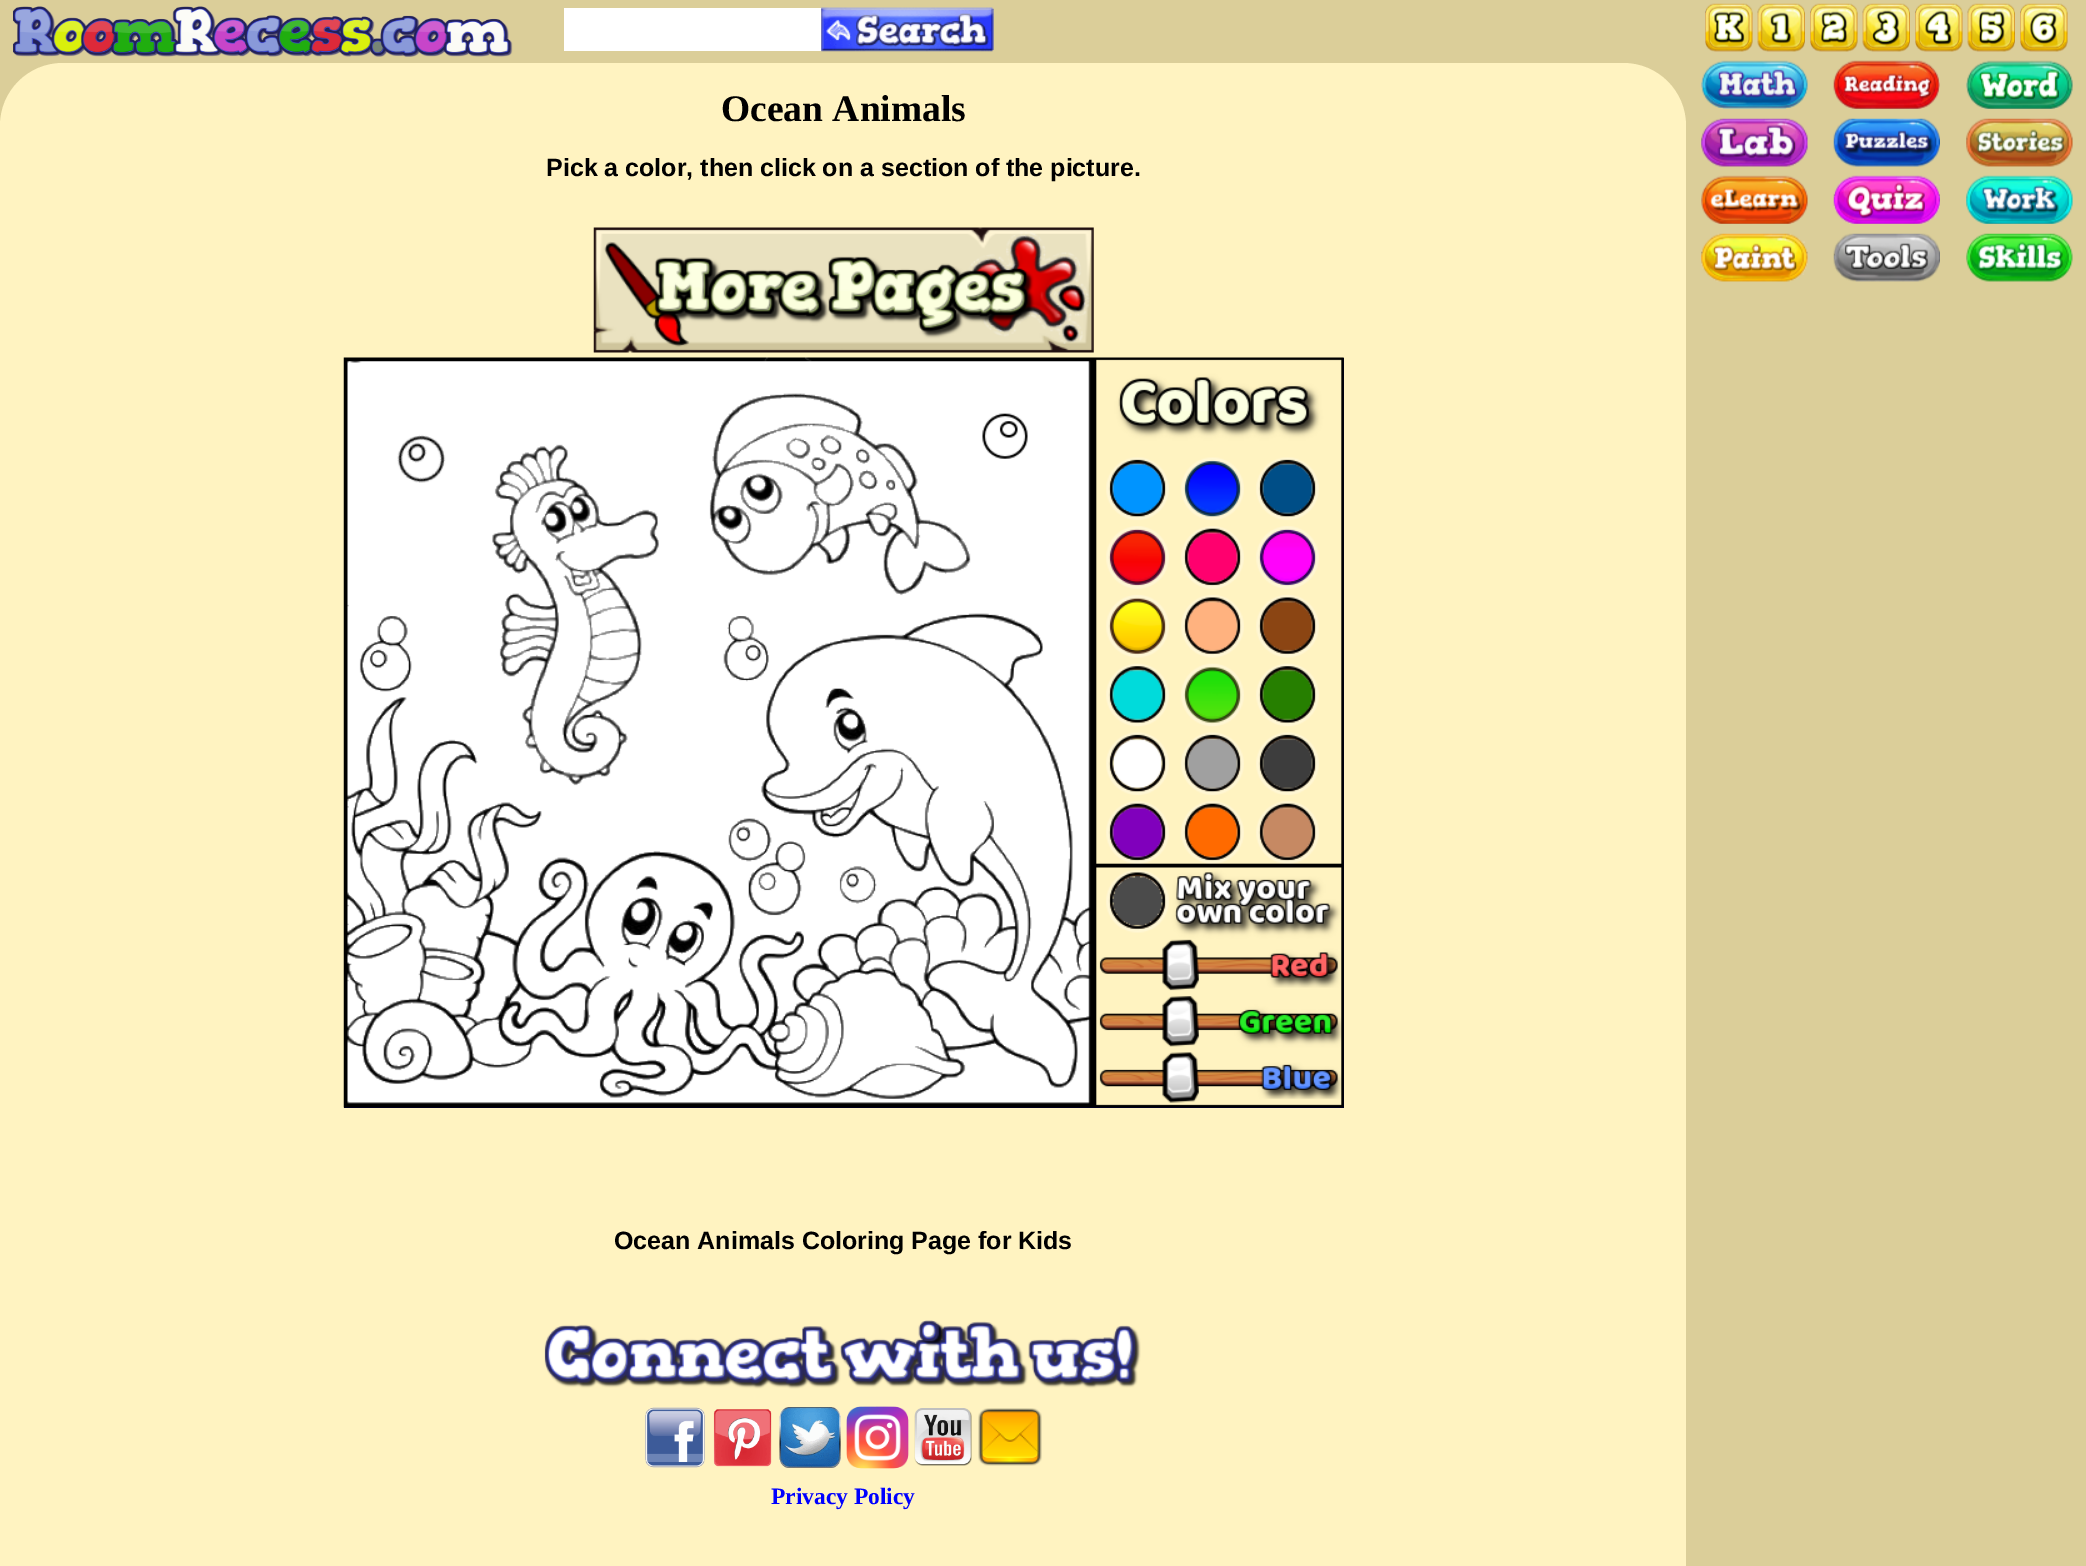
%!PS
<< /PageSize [2086 1566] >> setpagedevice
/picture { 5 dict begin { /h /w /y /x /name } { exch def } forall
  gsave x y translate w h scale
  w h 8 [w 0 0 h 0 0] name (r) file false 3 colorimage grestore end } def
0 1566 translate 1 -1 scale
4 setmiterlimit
0.859 0.808 0.6 setrgbcolor
0 0 2086 1566 rectfill
1 0.953 0.757 setrgbcolor
newpath 63 63 moveto 1623 63 lineto 1658 63 1686 91 1686 126 curveto 1686 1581 lineto 0 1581 lineto 0 126 lineto 0 91 28 63 63 63 curveto closepath fill
(img1.rgb) 13 6 500 51 picture
1 setgray
564 8 257 43 rectfill
(img2.rgb) 821 7 173 45 picture
(img3.rgb) 1705 3 48 49 picture
(img4.rgb) 1757 3 48 49 picture
(img5.rgb) 1810 3 48 49 picture
(img6.rgb) 1862 3 48 49 picture
(img7.rgb) 1915 3 48 49 picture
(img8.rgb) 1967 3 48 49 picture
(img9.rgb) 2020 3 48 49 picture
(img10.rgb) 1701 60 107 49 picture
(img11.rgb) 1833 60 107 49 picture
(img12.rgb) 1966 60 107 49 picture
(img13.rgb) 1701 118 107 49 picture
(img14.rgb) 1833 118 107 49 picture
(img15.rgb) 1966 118 107 49 picture
(img16.rgb) 1701 175 107 49 picture
(img17.rgb) 1833 175 107 49 picture
(img18.rgb) 1966 175 107 49 picture
(img19.rgb) 1701 233 107 49 picture
(img20.rgb) 1833 233 107 49 picture
(img21.rgb) 1966 233 107 49 picture
/LiberationSerif-Bold [37.5 0 0 -37.5 0 0] selectfont
0 setgray
721 121 moveto (Ocean Animals) show
/LiberationSans-Bold [25 0 0 -25 0 0] selectfont
546 176 moveto (Pick a color, then click on a section of the picture.) show
(img22.rgb) 593 227 501 126 picture
0 0 0.251 setrgbcolor
344 358 1000 750 rectfill
(img23.rgb) 343 357 1001 751 picture
0 setgray
614 1249 moveto (Ocean Animals Coloring Page for Kids) show
(img24.rgb) 544 1320 597 69 picture
(img25.rgb) 645 1407 60 61 picture
(img26.rgb) 713 1409 59 58 picture
(img27.rgb) 779 1407 62 61 picture
(img28.rgb) 846 1406 63 63 picture
(img29.rgb) 914 1408 58 58 picture
(img30.rgb) 978 1408 64 58 picture
/LiberationSerif-Bold [23.5 0 0 -23.5 0 0] selectfont
0 0 1 setrgbcolor
771 1504 moveto (Privacy Policy) show
showpage
